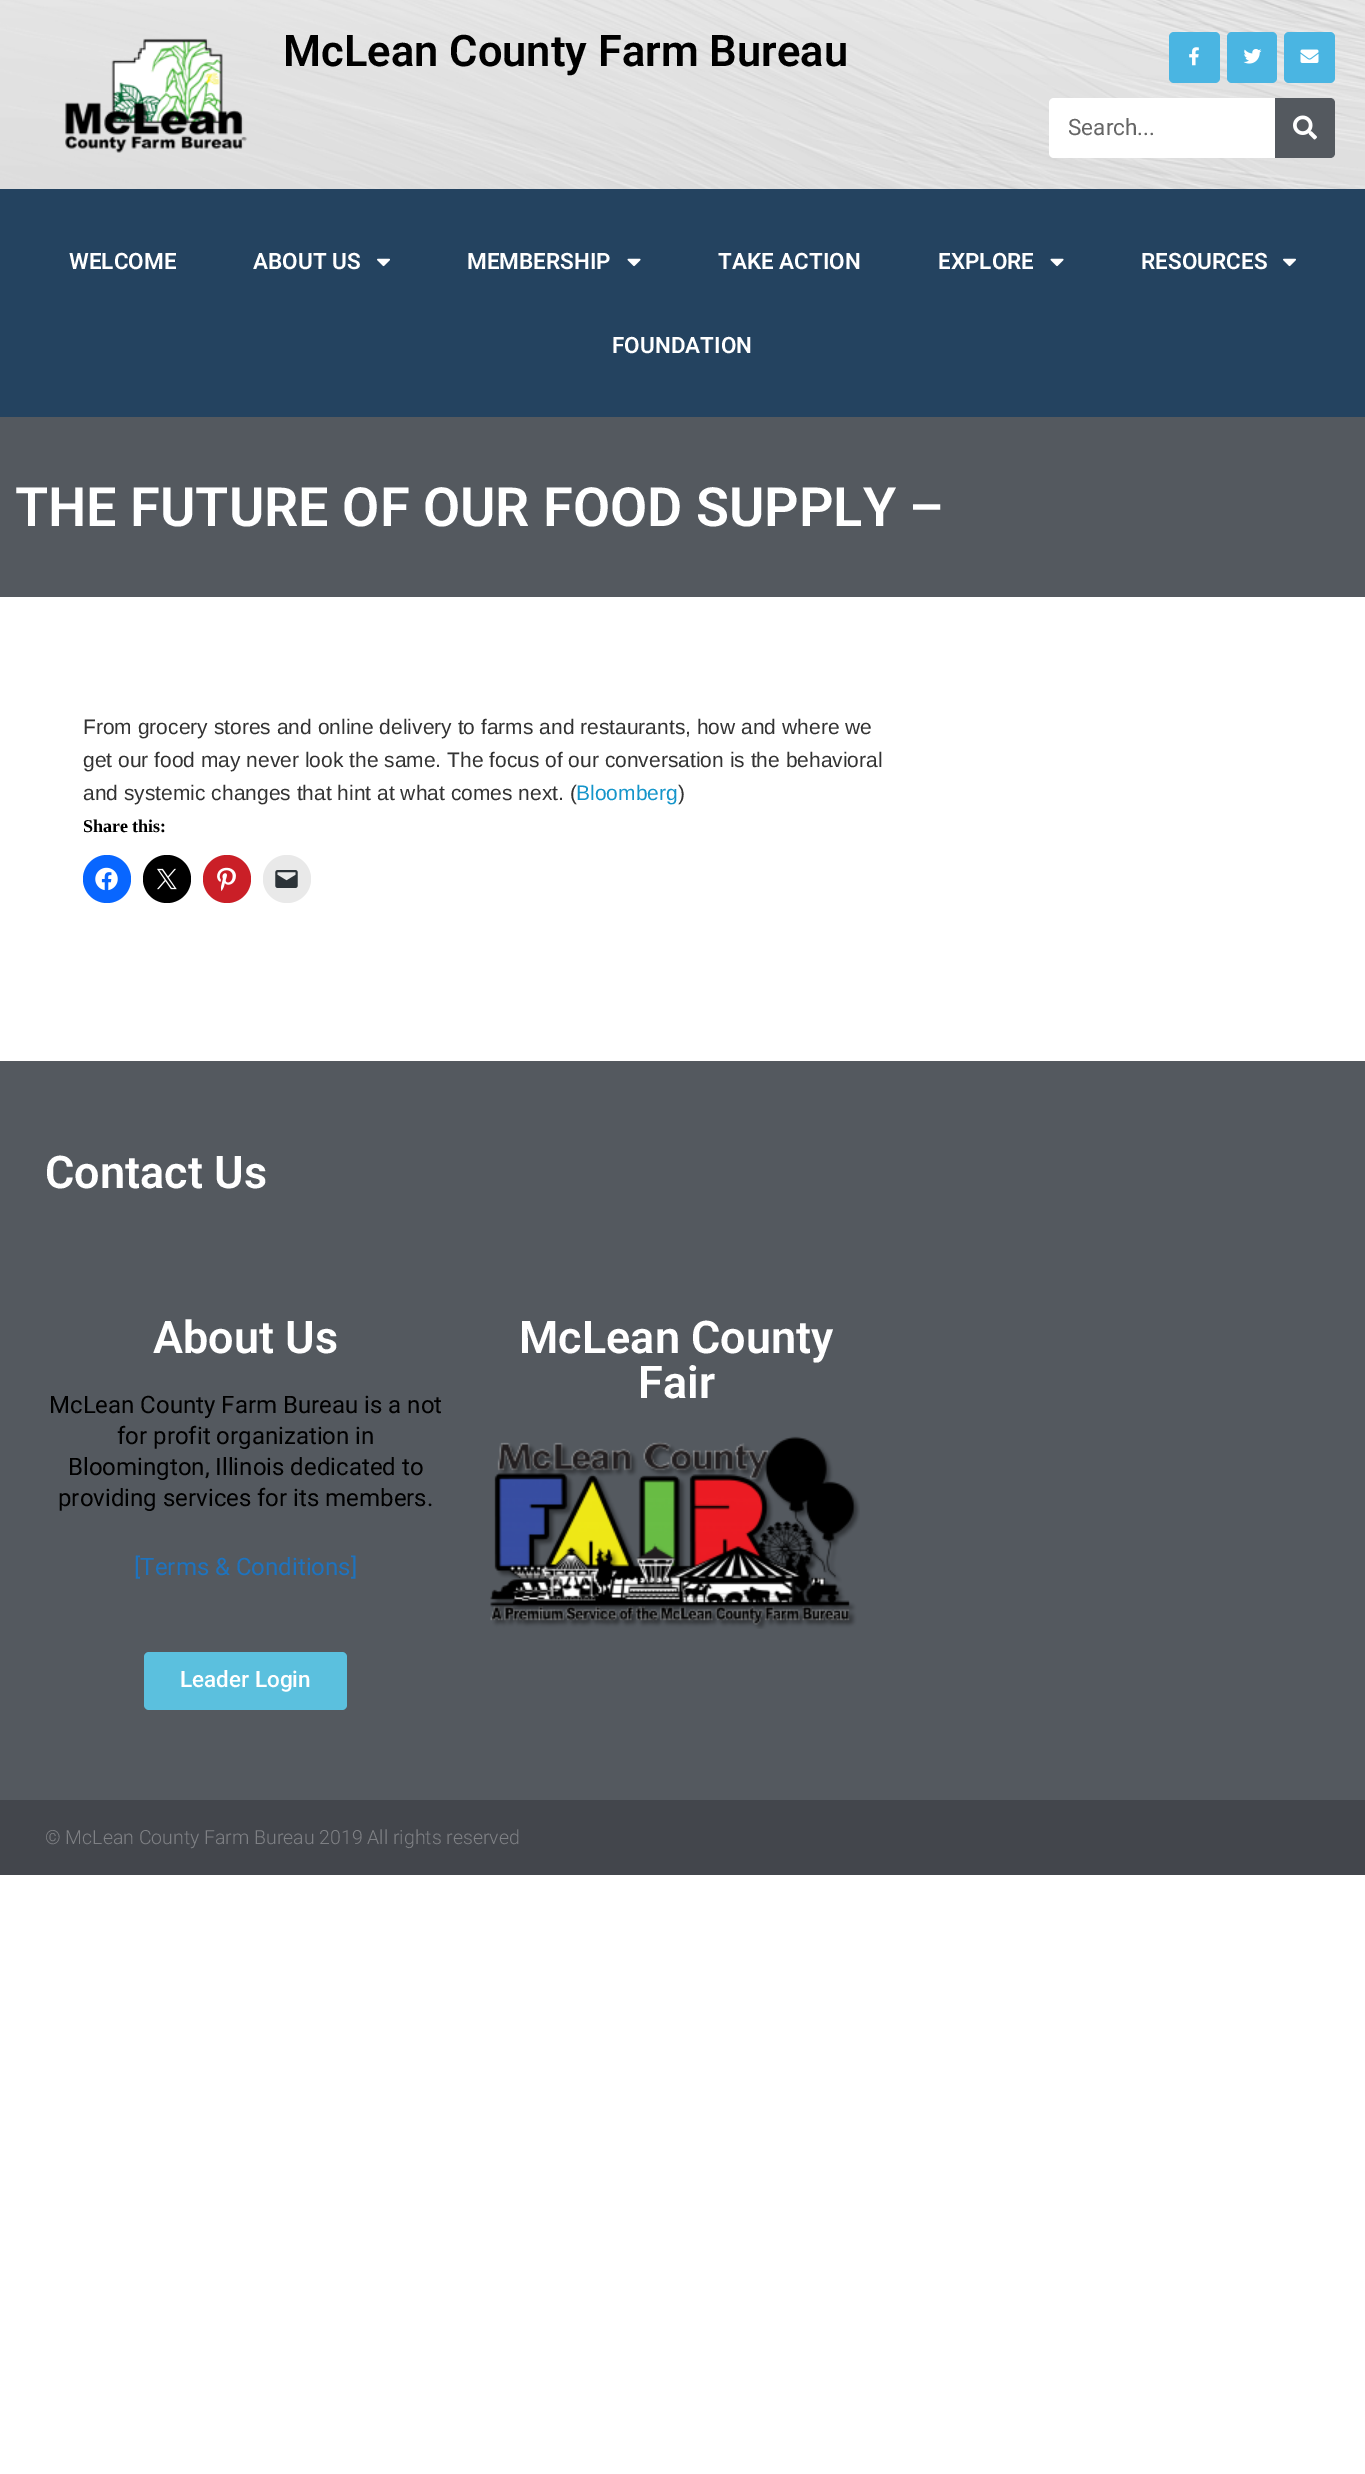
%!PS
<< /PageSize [1365 2474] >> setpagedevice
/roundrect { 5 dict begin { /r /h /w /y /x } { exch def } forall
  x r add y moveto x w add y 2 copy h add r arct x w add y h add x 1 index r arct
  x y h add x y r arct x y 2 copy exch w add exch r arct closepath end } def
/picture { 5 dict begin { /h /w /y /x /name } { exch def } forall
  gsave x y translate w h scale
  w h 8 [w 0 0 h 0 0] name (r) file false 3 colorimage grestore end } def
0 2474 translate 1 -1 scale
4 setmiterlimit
1 setgray
0 0 1365 2474 rectfill
(img1.rgb) 0 0 1365 189 picture
(img2.rgb) 65 38 183 115 picture
/Roboto-SemiBold [43.5 0 0 -43.5 0 0] selectfont
0 setgray
283 66 moveto (McLean County Farm Bureau) show
0.29 0.71 0.886 setrgbcolor
1169 32 51 51 5 roundrect fill
(img3.rgb) 1189 47 10 19 picture
1227 32 50 51 5 roundrect fill
(img4.rgb) 1243 49 19 15 picture
1284 32 51 51 5 roundrect fill
(img5.rgb) 1300 49 19 14 picture
1 setgray
1049 98 286 60 5 roundrect fill
/Roboto-Regular [22.5 0 0 -22.5 0 0] selectfont
0.4 setgray
1068 135 moveto (Search...) show
0.329 0.349 0.373 setrgbcolor
newpath 1275 98 moveto 1330 98 lineto 1333 98 1335 100 1335 103 curveto 1335 153 lineto 1335 156 1333 158 1330 158 curveto 1275 158 lineto closepath fill
(img6.rgb) 1293 115 24 25 picture
0.141 0.263 0.376 setrgbcolor
0 189 1365 228 rectfill
/Roboto-SemiBold [22.5 0 0 -22.5 0 0] selectfont
1 setgray
69 269 moveto (WELCOME) show
253 269 moveto (ABOUT US) show
(img7.rgb) 377 258 13 9 picture
467 269 moveto (MEMBERSHIP) show
(img8.rgb) 627 258 14 9 picture
718 269 moveto (TAKE ACTION) show
938 269 moveto (EXPLORE) show
(img8.rgb) 1050 258 14 9 picture
1141 269 moveto (RESOURCES) show
(img7.rgb) 1283 258 13 9 picture
612 353 moveto (FOUNDATION) show
0.329 0.349 0.373 setrgbcolor
0 417 1365 180 rectfill
/Roboto-SemiBold [54 0 0 -54 0 0] selectfont
1 setgray
15 526 moveto (THE FUTURE OF OUR FOOD SUPPLY –) show
/LiberationSans-Regular [21 0 0 -21 0 0] selectfont
0.2 setgray
83 734 moveto (From grocery stores and online delivery to farms and restaurants, how and where we) show
83 767 moveto (get our food may never look the same. The focus of our conversation is the behavioral) show
83 800 moveto (and systemic changes that hint at what comes next. \() show
0.078 0.584 0.792 setrgbcolor
576 800 moveto (Bloomberg) show
0.2 setgray
678 800 moveto (\)) show
/LiberationSerif-Bold [18 0 0 -18 0 0] selectfont
0 setgray
83 832 moveto (Share this:) show
0.031 0.4 1 setrgbcolor
newpath 107 879 24 0 360 arc closepath fill
(img9.rgb) 95 867 23 24 picture
0 setgray
newpath 167 879 24 0 360 arc closepath fill
(img10.rgb) 157 868 20 22 picture
0.792 0.122 0.153 setrgbcolor
newpath 227 879 24 0 360 arc closepath fill
(img11.rgb) 217 867 19 24 picture
0.914 setgray
newpath 287 879 24 0 360 arc closepath fill
(img12.rgb) 275 870 23 18 picture
0.329 0.349 0.373 setrgbcolor
0 1061 1365 739 rectfill
/Roboto-SemiBold [45 0 0 -45 0 0] selectfont
1 setgray
45 1188 moveto (Contact Us) show
153 1353 moveto (About Us) show
/Roboto-Regular [24 0 0 -24 0 0] selectfont
0 setgray
49 1413 moveto (McLean County Farm Bureau is a not) show
117 1444 moveto (for profit organization in) show
68 1475 moveto (Bloomington, Illinois dedicated to) show
58 1506 moveto (providing services for its members.) show
0.118 0.451 0.745 setrgbcolor
134 1575 moveto ([Terms & Conditions]) show
0.357 0.753 0.871 setrgbcolor
144 1652 203 58 5 roundrect fill
/Roboto-Medium [22.5 0 0 -22.5 0 0] selectfont
1 setgray
180 1687 moveto (Leader Login) show
/Roboto-SemiBold [45 0 0 -45 0 0] selectfont
519 1353 moveto (McLean County) show
638 1398 moveto (Fair) show
(img13.rgb) 490 1436 370 193 picture
0.263 0.275 0.298 setrgbcolor
0 1800 1365 75 rectfill
/Roboto-Light [19.5 0 0 -19.5 0 0] selectfont
0.498 0.506 0.522 setrgbcolor
45 1844 moveto (© McLean County Farm Bureau 2019 All rights reserved) show
showpage
